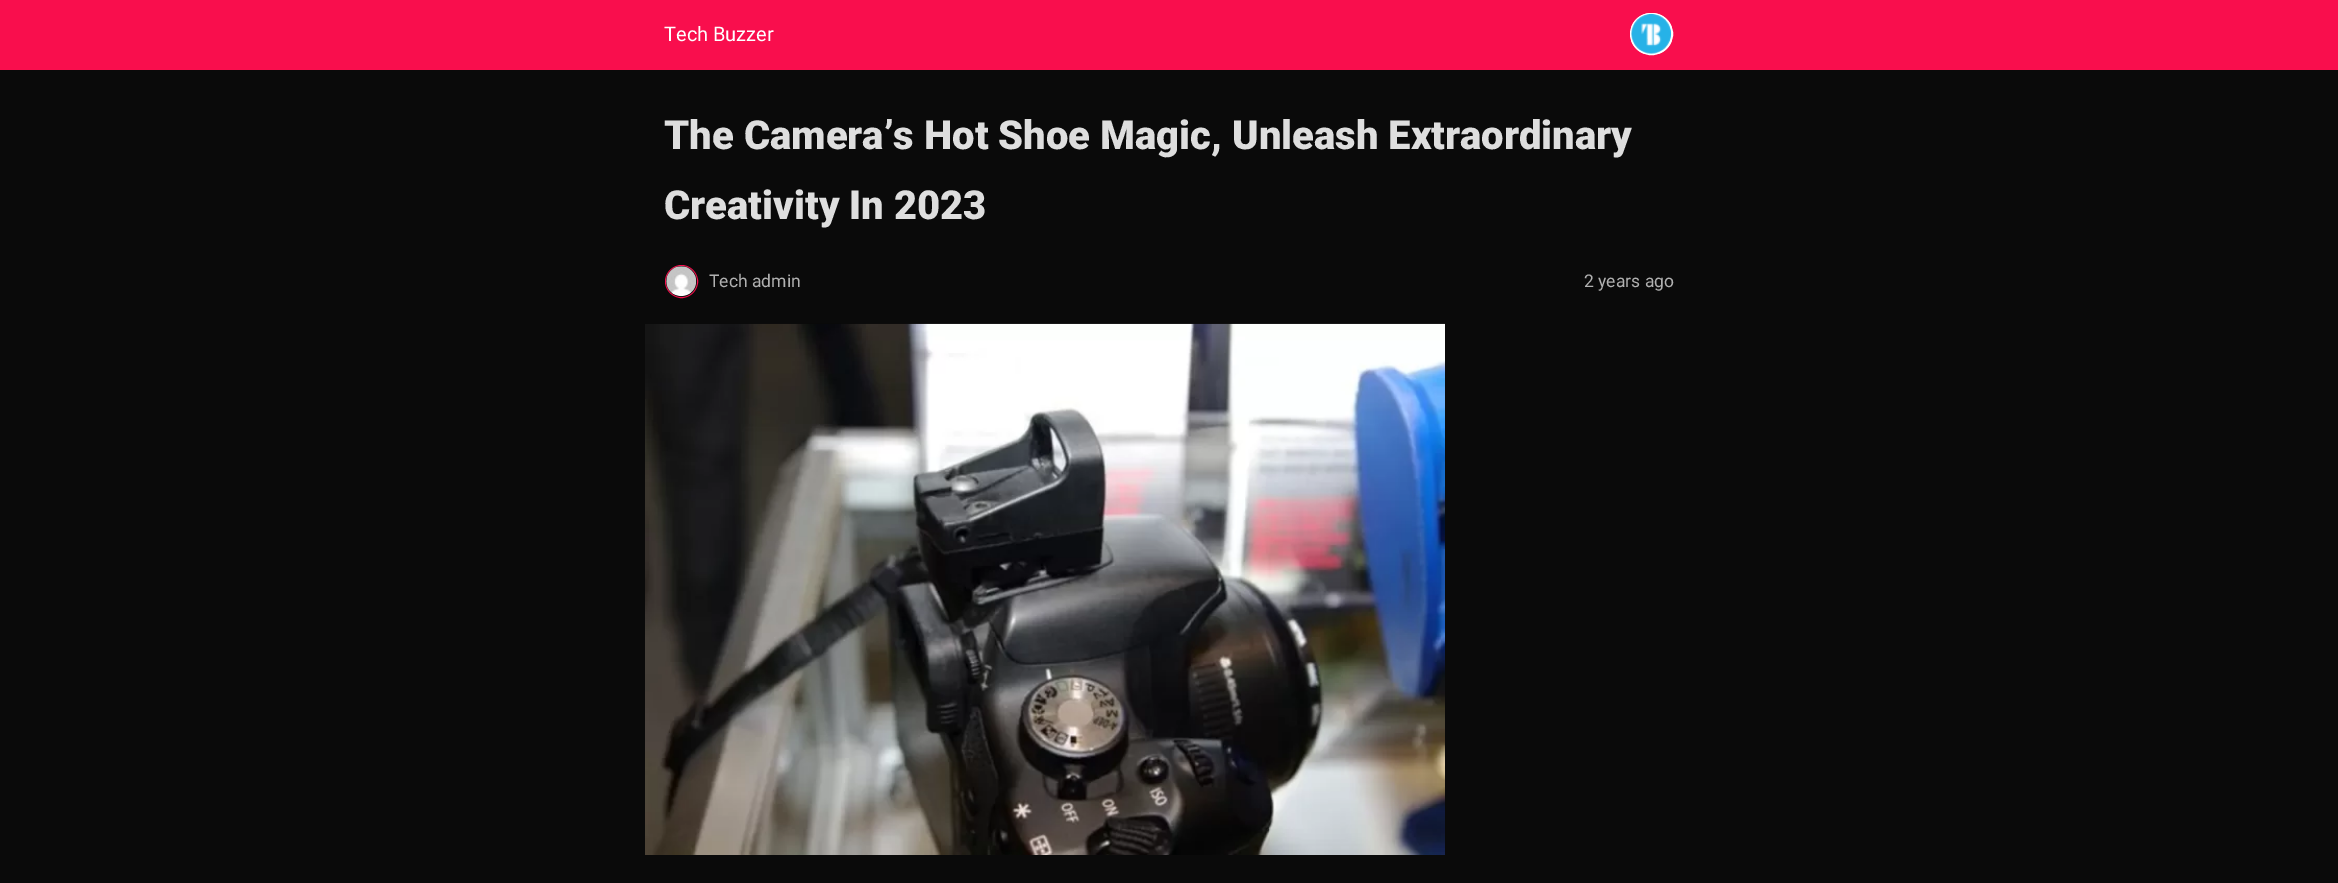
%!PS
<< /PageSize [2338 883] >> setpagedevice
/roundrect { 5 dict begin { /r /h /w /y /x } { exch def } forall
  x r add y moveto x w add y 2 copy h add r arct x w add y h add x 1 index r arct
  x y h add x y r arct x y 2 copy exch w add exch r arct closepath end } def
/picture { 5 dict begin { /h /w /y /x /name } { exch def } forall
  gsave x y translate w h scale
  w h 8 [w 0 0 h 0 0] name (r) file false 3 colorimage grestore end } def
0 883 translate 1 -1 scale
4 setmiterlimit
0.039 setgray
0 0 2338 883 rectfill
0.976 0.055 0.302 setrgbcolor
0 0 2338 70 rectfill
/Roboto-Regular [20 0 0 -20 0 0] selectfont
1 setgray
664 41 moveto (Tech Buzzer) show
1630.5 13.5 42 41 20.5 roundrect gsave fill grestore
stroke
(img1.rgb) 1631 13 41 41 picture
/Roboto-Black [40 0 0 -40 0 0] selectfont
0.871 setgray
664 149 moveto (The Camera’s Hot Shoe Magic, Unleash Extraordinary) show
664 219 moveto (Creativity In 2023) show
0.976 0.055 0.302 setrgbcolor
newpath 681.5 281.5 16 0 360 arc closepath stroke
(img2.rgb) 666 266 31 31 picture
/Roboto-Regular [17.5 0 0 -17.5 0 0] selectfont
0.694 setgray
709 287 moveto (Tech admin) show
1584 287 moveto (2 years ago) show
(img3.rgb) 645 323 800 532 picture
showpage
